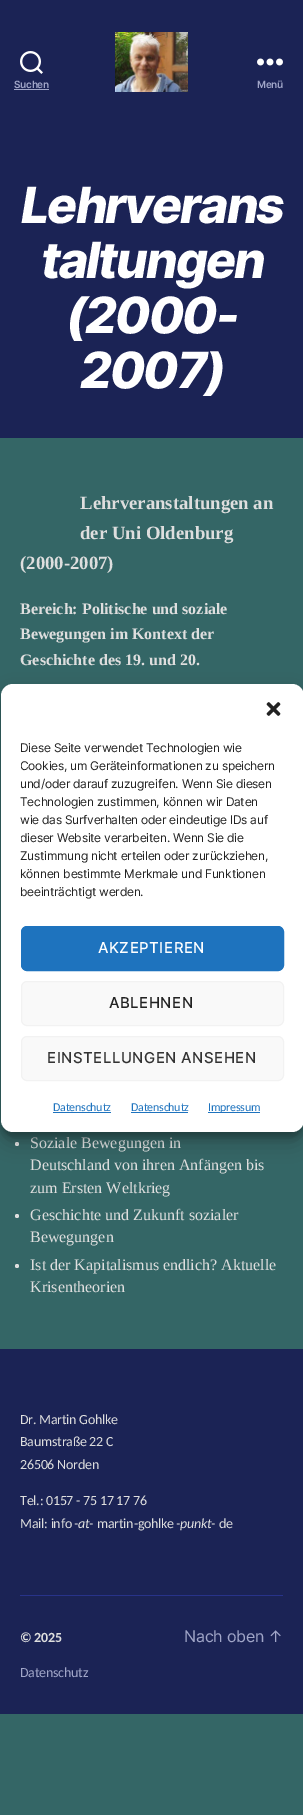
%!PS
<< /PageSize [303 1815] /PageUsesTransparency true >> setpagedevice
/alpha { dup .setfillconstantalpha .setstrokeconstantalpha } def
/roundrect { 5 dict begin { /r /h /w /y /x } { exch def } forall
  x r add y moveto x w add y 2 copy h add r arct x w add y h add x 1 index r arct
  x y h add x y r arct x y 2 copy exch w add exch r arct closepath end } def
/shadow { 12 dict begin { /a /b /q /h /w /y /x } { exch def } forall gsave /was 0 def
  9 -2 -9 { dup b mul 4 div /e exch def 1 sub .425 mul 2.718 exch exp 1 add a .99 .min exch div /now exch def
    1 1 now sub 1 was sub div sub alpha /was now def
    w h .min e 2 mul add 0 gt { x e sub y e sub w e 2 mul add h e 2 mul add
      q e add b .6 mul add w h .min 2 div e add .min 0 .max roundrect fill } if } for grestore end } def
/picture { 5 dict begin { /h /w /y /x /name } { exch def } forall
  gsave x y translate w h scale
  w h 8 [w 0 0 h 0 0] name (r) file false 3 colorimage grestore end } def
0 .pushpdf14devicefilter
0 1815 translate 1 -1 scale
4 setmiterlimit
0.204 0.4 0.4 setrgbcolor
0 0 303 1815 rectfill
0.106 0.137 0.333 setrgbcolor
0 0 303 438 rectfill
(img1.rgb) 20 51 23 23 picture
/Inter-SemiBold [10 0 0 -10 0 0] selectfont
0.631 0.651 0.784 setrgbcolor
14 88 moveto -0.25 0 (Suchen) ashow
14 89 35 1 rectfill
(img2.rgb) 115 32 73 60 picture
(img3.rgb) 257 58 26 8 picture
257 88 moveto -0.25 0 (Menü) ashow
/Inter-ExtraBoldItalic [50 0 0 -50 0 0] selectfont
1 setgray
21 223 moveto -2 0 (Lehrverans) ashow
41 278 moveto -2 0 (taltungen) ashow
66 333 moveto -2 0 (\(2000-) ashow
80 388 moveto -2 0 (2007\)) ashow
/LiberationSerif-Bold [18.75 0 0 -18.75 0 0] selectfont
0.871 setgray
80 509 moveto (Lehrveranstaltungen an) show
80 539 moveto (der Uni Oldenburg) show
20 569 moveto (\(2000-2007\)) show
/LiberationSerif-Bold [16 0 0 -16 0 0] selectfont
20 614 moveto (Bereich: Politische und soziale) show
20 639 moveto (Bewegungen im Kontext der) show
20 665 moveto (Geschichte des 19. und 20.) show
newpath 17 1144 2 0 360 arc closepath fill
/LiberationSerif-Regular [16 0 0 -16 0 0] selectfont
30 1148 moveto (Soziale Bewegungen in) show
30 1170 moveto (Deutschland von ihren Anfängen bis) show
30 1193 moveto (zum Ersten Weltkrieg) show
newpath 17 1216 2 0 360 arc closepath fill
30 1220 moveto (Geschichte und Zukunft sozialer) show
30 1242 moveto (Bewegungen) show
newpath 17 1266 2 0 360 arc closepath fill
30 1270 moveto (Ist der Kapitalismus endlich? Aktuelle) show
30 1292 moveto (Krisentheorien) show
gsave
newpath 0 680 moveto 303 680 lineto 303 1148 lineto 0 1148 lineto closepath 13 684 moveto 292 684 lineto 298.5 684 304 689.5 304 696 curveto 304 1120 lineto 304 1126.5 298.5 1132 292 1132 curveto 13 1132 lineto 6.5 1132 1 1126.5 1 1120 curveto 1 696 lineto 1 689.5 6.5 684 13 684 curveto closepath eoclip newpath
0 setgray
1 690 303 448 12 3 0.23 shadow
grestore
gsave
newpath 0 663 moveto 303 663 lineto 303 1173 lineto 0 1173 lineto closepath 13 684 moveto 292 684 lineto 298.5 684 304 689.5 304 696 curveto 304 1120 lineto 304 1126.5 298.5 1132 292 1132 curveto 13 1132 lineto 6.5 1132 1 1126.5 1 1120 curveto 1 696 lineto 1 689.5 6.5 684 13 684 curveto closepath eoclip newpath
0 setgray
1 694 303 448 12 10 0.19 shadow
grestore
1 setgray
1 684 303 448 12 roundrect fill
(img4.rgb) 266 702 15 14 picture
/Inter-Regular [12 0 0 -12 0 0] selectfont
0.133 setgray
20 752 moveto -0.25 0 (Diese Seite verwendet Technologien wie) ashow
gsave
21 739 263 167 rectclip
20 770 moveto -0.25 0 (Cookies, um Geräteinformationen zu speichern) ashow
20 788 moveto -0.25 0 (und/oder darauf zuzugreifen. Wenn Sie diesen) ashow
grestore
20 806 moveto -0.25 0 (Technologien zustimmen, können wir Daten) ashow
20 824 moveto -0.25 0 (wie das Surfverhalten oder eindeutige IDs auf) ashow
gsave
21 739 263 167 rectclip
20 842 moveto -0.25 0 (dieser Website verarbeiten. Wenn Sie die) ashow
grestore
20 860 moveto -0.25 0 (Zustimmung nicht erteilen oder zurückziehen,) ashow
gsave
21 739 263 167 rectclip
20 878 moveto -0.25 0 (können bestimmte Merkmale und Funktionen) ashow
grestore
20 896 moveto -0.25 0 (beeinträchtigt werden.) ashow
0.118 0.451 0.745 setrgbcolor
21.5 926.5 262 44 5.5 roundrect gsave fill grestore
stroke
/Inter-Medium [15 0 0 -15 0 0] selectfont
1 setgray
98 953 moveto 0.5 0 (AKZEPTIEREN) ashow
0.976 setgray
21.5 981.5 262 44 5.5 roundrect gsave fill grestore
0.949 setgray
stroke
0.133 setgray
109 1008 moveto 0.5 0 (ABLEHNEN) ashow
0.976 setgray
21.5 1036.5 262 44 5.5 roundrect gsave fill grestore
0.949 setgray
stroke
0.2 setgray
47 1063 moveto 0.5 0 (EINSTELLUNGEN ANSEHEN) ashow
/Carlito-Regular [12 0 0 -12 0 0] selectfont
0.118 0.451 0.745 setrgbcolor
53 1111 moveto -0.25 0 (Datenschutz) ashow
53 1112 58 1 rectfill
131 1111 moveto -0.25 0 (Datenschutz) ashow
131 1112 57 1 rectfill
208 1112 52 1 rectfill
208 1111 moveto -0.25 0 (Impressum) ashow
0.106 0.137 0.333 setrgbcolor
0 1349 303 365 rectfill
0.157 0.2 0.541 setrgbcolor
20 1595 263 1 rectfill
/Carlito-Regular [14 0 0 -14 0 0] selectfont
0.871 setgray
20 1424 moveto -0.25 0 (Dr. Martin Gohlke) ashow
20 1446 moveto -0.25 0 (Baumstraße 22 C) ashow
20 1469 moveto -0.25 0 (26506 Norden) ashow
20 1505 moveto -0.25 0 (Tel.: 0157 - 75 17 17 76) ashow
20 1528 moveto -0.25 0 (Mail: info) ashow
/Carlito-Italic [14 0 0 -14 0 0] selectfont
74 1528 moveto -0.25 0 (-at-) ashow
/Carlito-Regular [14 0 0 -14 0 0] selectfont
97 1528 moveto -0.25 0 (martin-gohlke) ashow
/Carlito-Italic [14 0 0 -14 0 0] selectfont
176 1528 moveto -0.25 0 (-punkt-) ashow
/Carlito-Regular [14 0 0 -14 0 0] selectfont
219 1528 moveto -0.25 0 (de) ashow
/Carlito-Bold [14 0 0 -14 0 0] selectfont
20 1642 moveto -0.25 0 (© 2025) ashow
/Carlito-Regular [14 0 0 -14 0 0] selectfont
0.631 0.651 0.784 setrgbcolor
20 1677 moveto -0.25 0 (Datenschutz) ashow
/Inter-Regular [16 0 0 -16 0 0] selectfont
184 1642 moveto -0.25 0 (Nach oben ↑) ashow
.poppdf14devicefilter showpage
